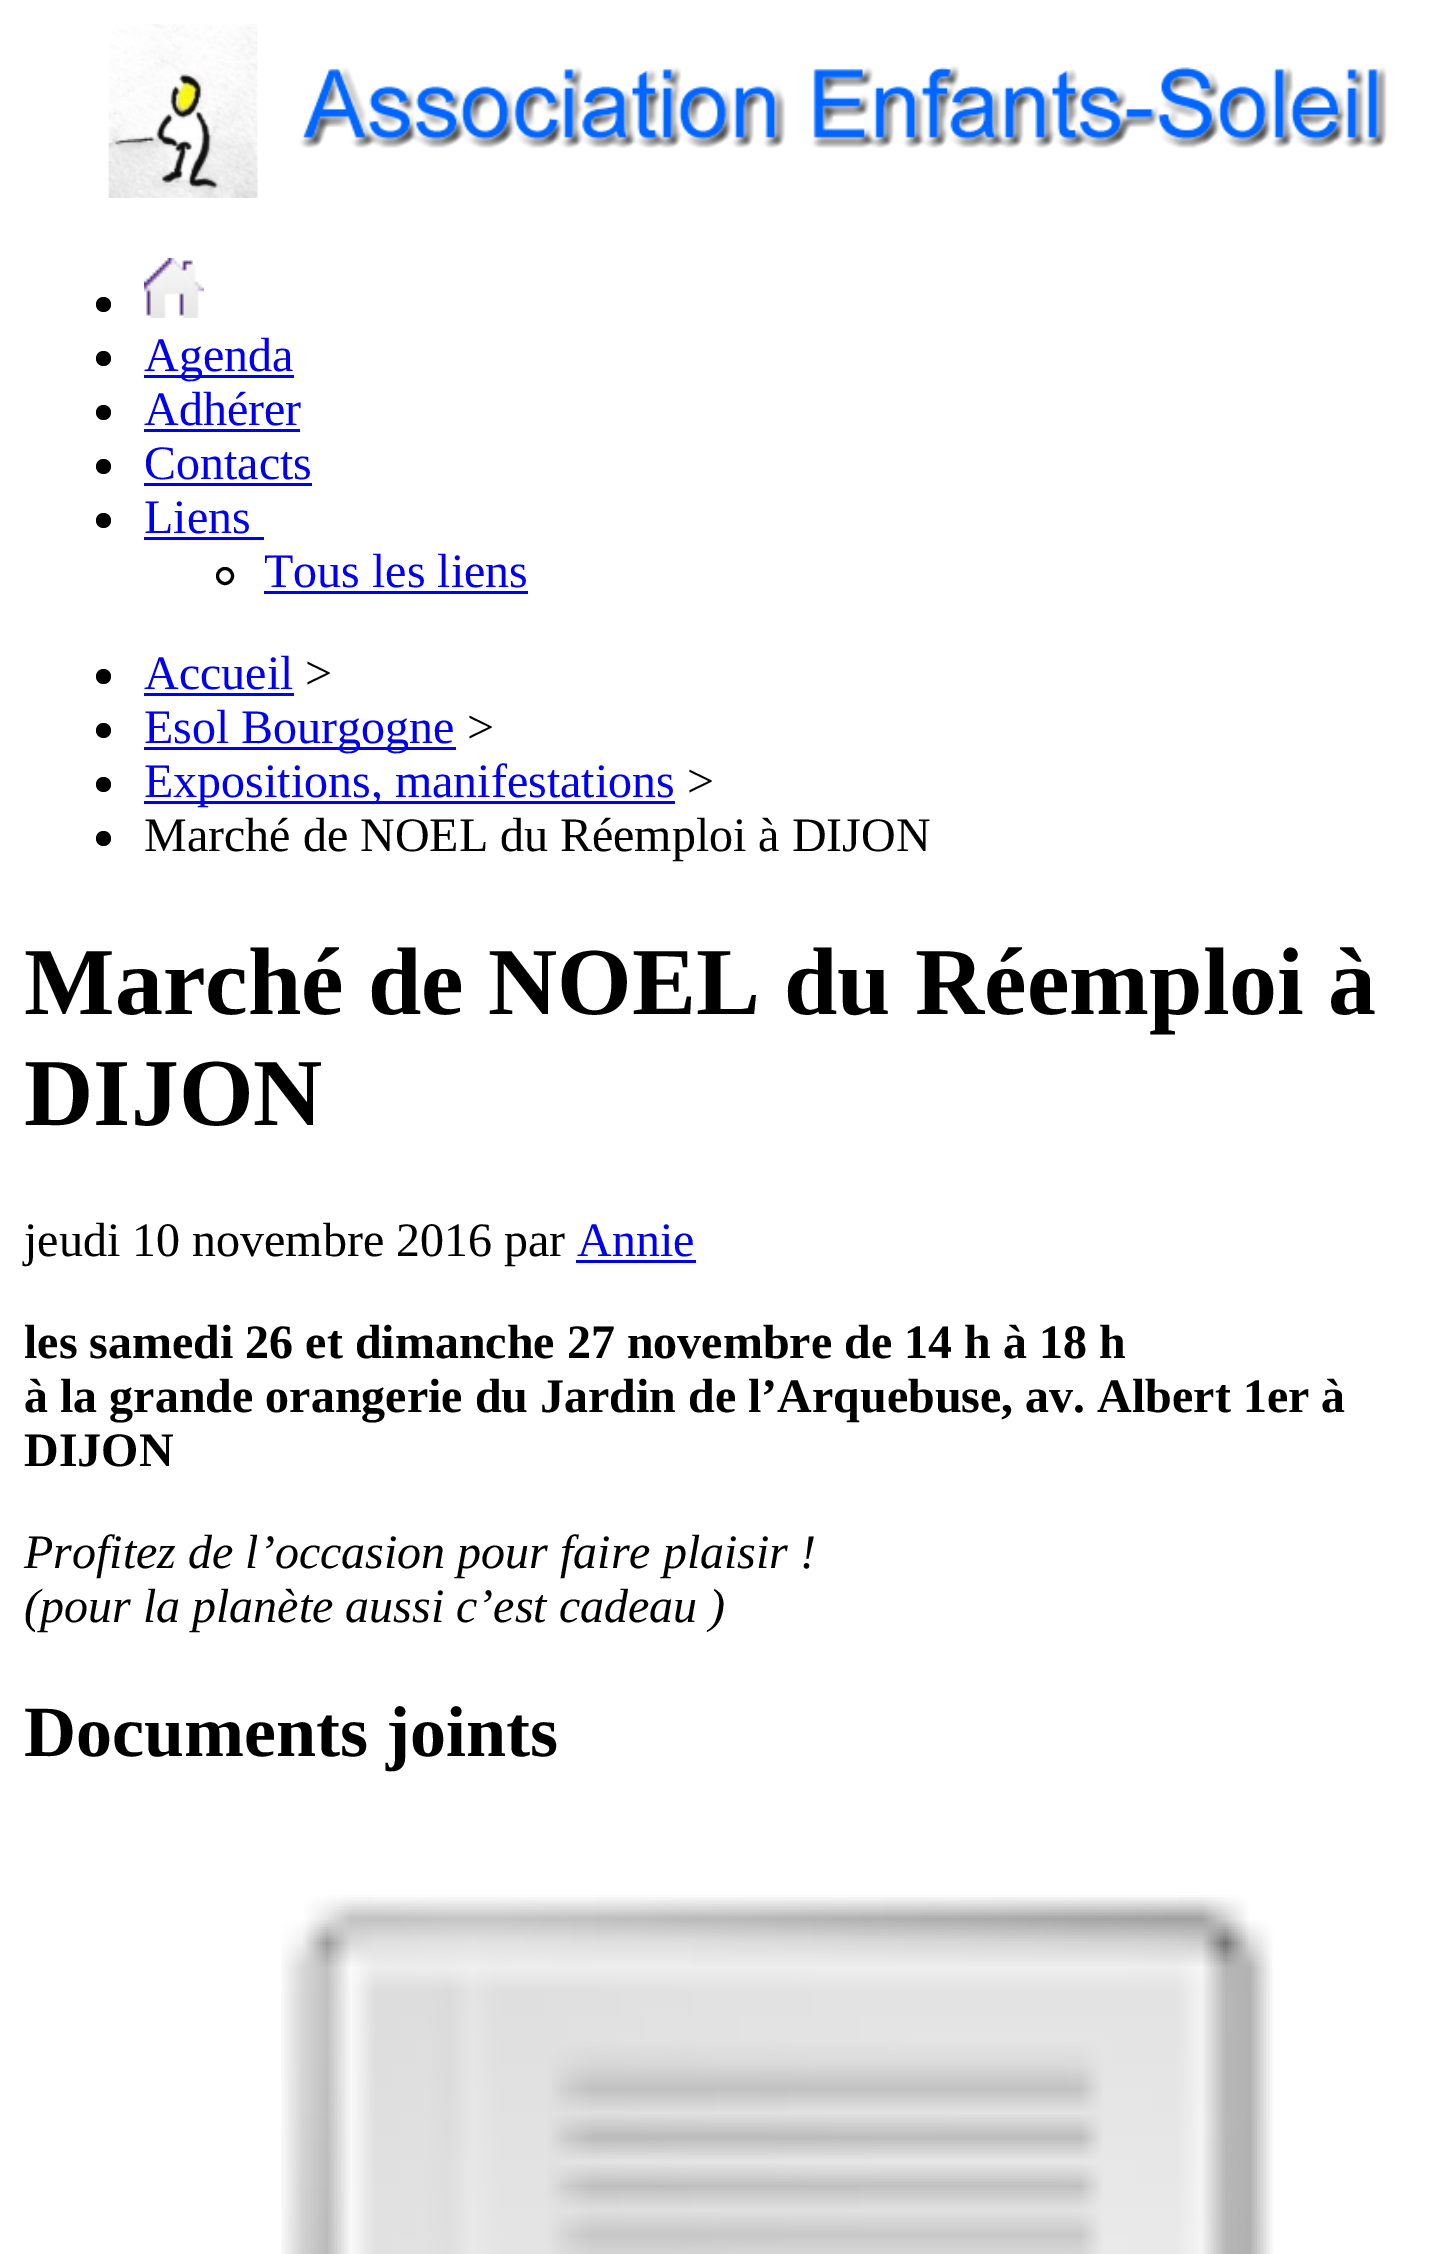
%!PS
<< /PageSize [1431 2254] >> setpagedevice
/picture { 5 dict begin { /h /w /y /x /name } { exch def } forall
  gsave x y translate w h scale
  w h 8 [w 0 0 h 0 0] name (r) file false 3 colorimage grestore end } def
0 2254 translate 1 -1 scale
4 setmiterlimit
1 setgray
0 0 1431 2254 rectfill
(img1.rgb) 108 24 1279 174 picture
0 setgray
newpath 103.5 304.5 7.5 0 360 arc closepath fill
(img2.rgb) 144 258 60 60 picture
newpath 103.5 358.5 7.5 0 360 arc closepath fill
0 0 0.933 setrgbcolor
144 375 150 3 rectfill
/LiberationSerif-Regular [48 0 0 -48 0 0] selectfont
144 371 moveto (Agenda) show
0 setgray
newpath 103.5 412.5 7.5 0 360 arc closepath fill
0 0 0.933 setrgbcolor
144 425 moveto (Adhérer) show
144 429 156 3 rectfill
0 setgray
newpath 103.5 466.5 7.5 0 360 arc closepath fill
0 0 0.933 setrgbcolor
144 479 moveto (Contacts) show
144 483 168 3 rectfill
0 setgray
newpath 103.5 520.5 7.5 0 360 arc closepath fill
0 0 0.933 setrgbcolor
144 533 moveto (Liens) show
144 537 120 3 rectfill
0 setgray
3 setlinewidth
newpath 225 576 7.5 0 360 arc closepath stroke
0 0 0.933 setrgbcolor
264 587 moveto (Tous les liens) show
264 591 264 3 rectfill
0 setgray
newpath 103.5 676.5 7.5 0 360 arc closepath fill
0 0 0.933 setrgbcolor
144 689 moveto (Accueil) show
144 693 150 3 rectfill
0 setgray
305 689 moveto (>) show
newpath 103.5 730.5 7.5 0 360 arc closepath fill
0 0 0.933 setrgbcolor
144 747 312 3 rectfill
144 743 moveto (Esol Bourgogne) show
0 setgray
467 743 moveto (>) show
newpath 103.5 784.5 7.5 0 360 arc closepath fill
0 0 0.933 setrgbcolor
144 801 531 3 rectfill
144 797 moveto (Expositions, manifestations) show
0 setgray
687 797 moveto (>) show
newpath 103.5 838.5 7.5 0 360 arc closepath fill
144 851 moveto (Marché de NOEL du Réemploi à DIJON) show
/LiberationSerif-Bold [96 0 0 -96 0 0] selectfont
24 1014 moveto (Marché de NOEL du Réemploi à) show
24 1125 moveto (DIJON) show
/LiberationSerif-Regular [48 0 0 -48 0 0] selectfont
24 1256 moveto (jeudi 10 novembre 2016 par) show
0 0 0.933 setrgbcolor
577 1256 moveto (Annie) show
576 1260 120 3 rectfill
/LiberationSerif-Bold [48 0 0 -48 0 0] selectfont
0 setgray
24 1358 moveto (les samedi 26 et dimanche 27 novembre de 14 h à 18 h) show
24 1412 moveto (à la grande orangerie du Jardin de l’Arquebuse, av. Albert 1er à) show
24 1466 moveto (DIJON) show
/LiberationSerif-Italic [48 0 0 -48 0 0] selectfont
24 1568 moveto (Profitez de l’occasion pour faire plaisir !) show
24 1622 moveto (\(pour la planète aussi c’est cadeau \)) show
/LiberationSerif-Bold [72 0 0 -72 0 0] selectfont
24 1756 moveto (Documents joints) show
(img3.rgb) 281 1895 992 359 picture
showpage
